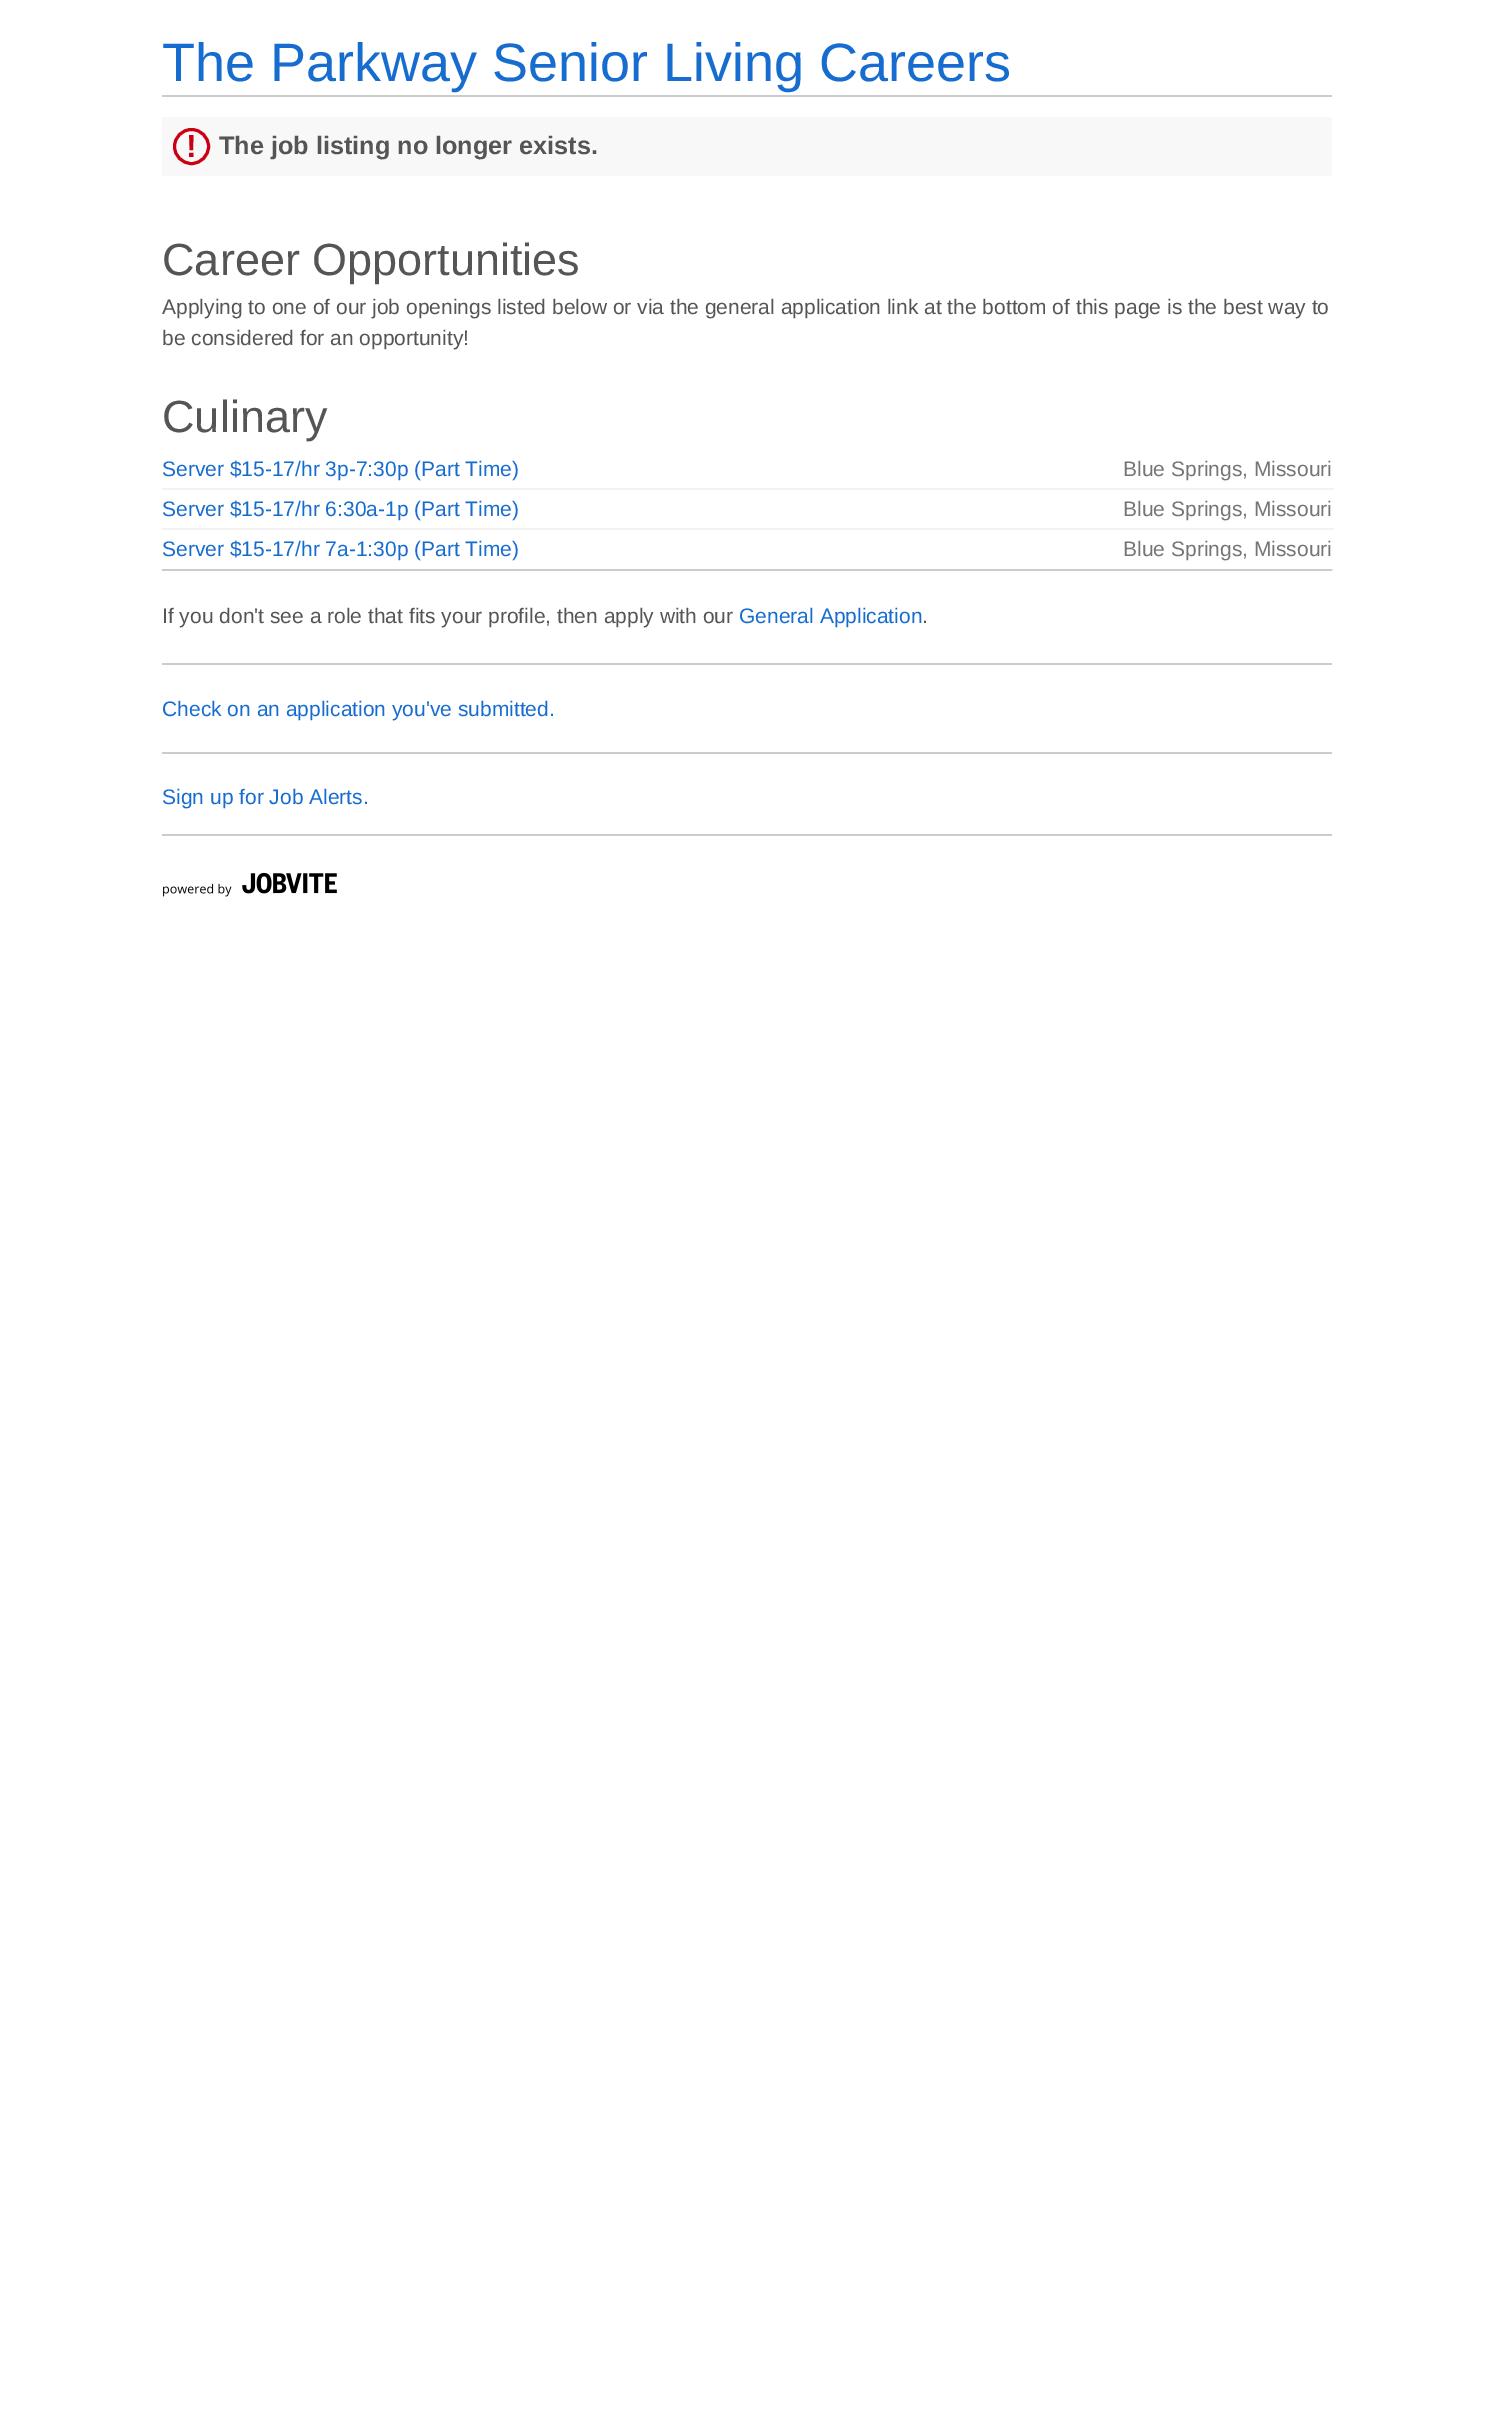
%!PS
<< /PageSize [1493 2420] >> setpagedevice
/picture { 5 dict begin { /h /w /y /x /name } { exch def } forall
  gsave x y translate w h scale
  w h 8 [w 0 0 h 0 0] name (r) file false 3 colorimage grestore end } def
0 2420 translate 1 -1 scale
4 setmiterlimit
1 setgray
0 0 1493 2420 rectfill
0.8 setgray
162 95 1170 2 rectfill
/LiberationSans-Regular [54 0 0 -54 0 0] selectfont
0.09 0.427 0.812 setrgbcolor
162 81 moveto (The Parkway Senior Living Careers) show
0.973 setgray
162 117 1170 59 rectfill
0.796 0 0.075 setrgbcolor
3 setlinewidth
newpath 191.5 146.5 17 0 360 arc closepath stroke
/LiberationSans-Bold [32 0 0 -32 0 0] selectfont
186 157 moveto (!) show
/LiberationSans-Bold [25.25 0 0 -25.25 0 0] selectfont
0.333 setgray
219 154 moveto (The job listing no longer exists.) show
/LiberationSans-Regular [45 0 0 -45 0 0] selectfont
162 275 moveto (Career Opportunities) show
/LiberationSans-Regular [21 0 0 -21 0 0] selectfont
162 314 moveto (Applying to one of our job openings listed below or via the general application link at the bottom of this page is the best way to) show
162 345 moveto (be considered for an opportunity!) show
/LiberationSans-Regular [45 0 0 -45 0 0] selectfont
162 432 moveto (Culinary) show
/LiberationSans-Regular [21 0 0 -21 0 0] selectfont
0.09 0.427 0.812 setrgbcolor
162 476 moveto (Server $15-17/hr 3p-7:30p \(Part Time\)) show
0.949 setgray
162 488 1172 2 rectfill
0.459 setgray
1123 476 moveto (Blue Springs, Missouri) show
0.09 0.427 0.812 setrgbcolor
162 516 moveto (Server $15-17/hr 6:30a-1p \(Part Time\)) show
0.949 setgray
162 528 1172 2 rectfill
0.459 setgray
1123 516 moveto (Blue Springs, Missouri) show
0.09 0.427 0.812 setrgbcolor
162 556 moveto (Server $15-17/hr 7a-1:30p \(Part Time\)) show
0.949 setgray
1332 569 2 2 rectfill
0.459 setgray
1123 556 moveto (Blue Springs, Missouri) show
0.8 setgray
162 569 1170 2 rectfill
0.333 setgray
162 623 moveto (If you don't see a role that fits your profile, then apply with our) show
0.09 0.427 0.812 setrgbcolor
739 623 moveto (General Application) show
0.333 setgray
922 623 moveto (.) show
0.8 setgray
162 663 1170 2 rectfill
0.09 0.427 0.812 setrgbcolor
162 716 moveto (Check on an application you've submitted.) show
0.8 setgray
162 752 1170 2 rectfill
0.09 0.427 0.812 setrgbcolor
162 804 moveto (Sign up for Job Alerts.) show
0.8 setgray
162 834 1170 2 rectfill
(img1.rgb) 163 872 174 25 picture
showpage
